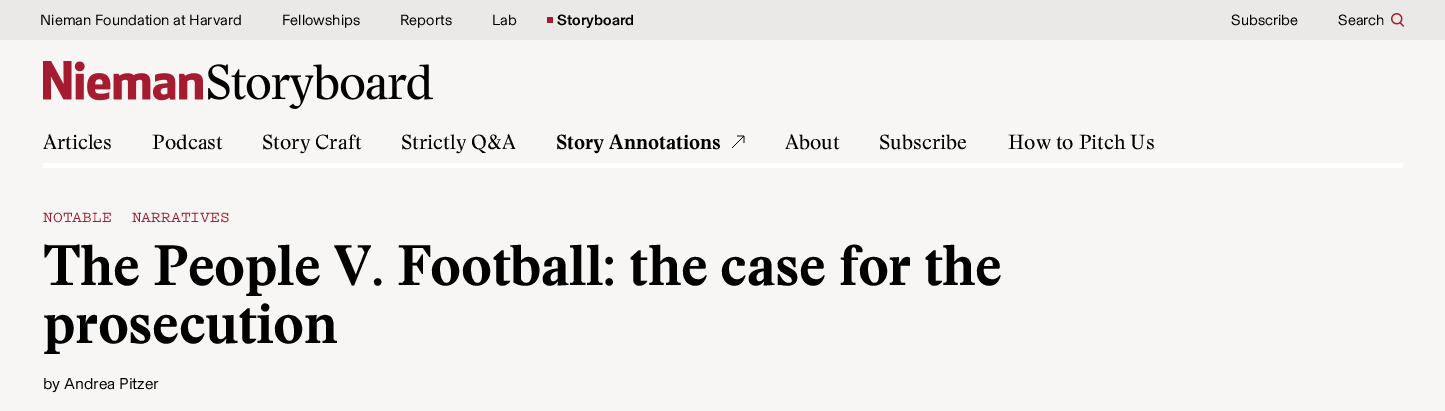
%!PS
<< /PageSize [1445 411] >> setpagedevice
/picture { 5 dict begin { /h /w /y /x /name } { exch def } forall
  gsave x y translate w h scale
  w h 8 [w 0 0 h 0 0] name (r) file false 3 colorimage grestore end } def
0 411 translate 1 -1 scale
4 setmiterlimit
0.969 0.965 0.961 setrgbcolor
0 0 1445 411 rectfill
0.922 0.914 0.91 setrgbcolor
0 0 1445 40 rectfill
/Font-Regular [15 0 0 -15 0 0] selectfont
0 setgray
40 25 moveto (Nieman Foundation at Harvard) show
282 25 moveto (Fellowships) show
400 25 moveto (Reports) show
492 25 moveto (Lab) show
0.647 0.11 0.188 setrgbcolor
547 17 6 6 rectfill
/Font-Medium [15 0 0 -15 0 0] selectfont
0 setgray
557 25 moveto (Storyboard) show
/Font-Regular [15 0 0 -15 0 0] selectfont
1231 25 moveto (Subscribe) show
(img1.rgb) 1391 13 14 14 picture
1338 25 moveto (Search) show
(img2.rgb) 43 61 390 48 picture
/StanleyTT-Regular [20 0 0 -20 0 0] selectfont
43 149 moveto (Articles) show
152 149 moveto (Podcast) show
262 149 moveto (Story Craft) show
401 149 moveto (Strictly Q&A) show
/StanleyTT-Bold [20 0 0 -20 0 0] selectfont
556 149 moveto (Story Annotations) show
(img3.rgb) 732 135 13 13 picture
/StanleyTT-Regular [20 0 0 -20 0 0] selectfont
785 149 moveto (About) show
879 149 moveto (Subscribe) show
1008 149 moveto (How to Pitch Us) show
1 setgray
43 163 1360 5 rectfill
/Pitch-Medium [16 0 0 -16 0 0] selectfont
0.647 0.11 0.188 setrgbcolor
43 222 moveto 10 0 32 (NOTABLE NARRATIVES) widthshow
/StanleyTT-Bold [56 0 0 -56 0 0] selectfont
0 setgray
43 285 moveto -0.55 0 (The People V. Football: the case for the) ashow
43 343 moveto -0.55 0 (prosecution) ashow
/Font-Regular [16 0 0 -16 0 0] selectfont
43 389 moveto (by Andrea Pitzer) show
showpage
